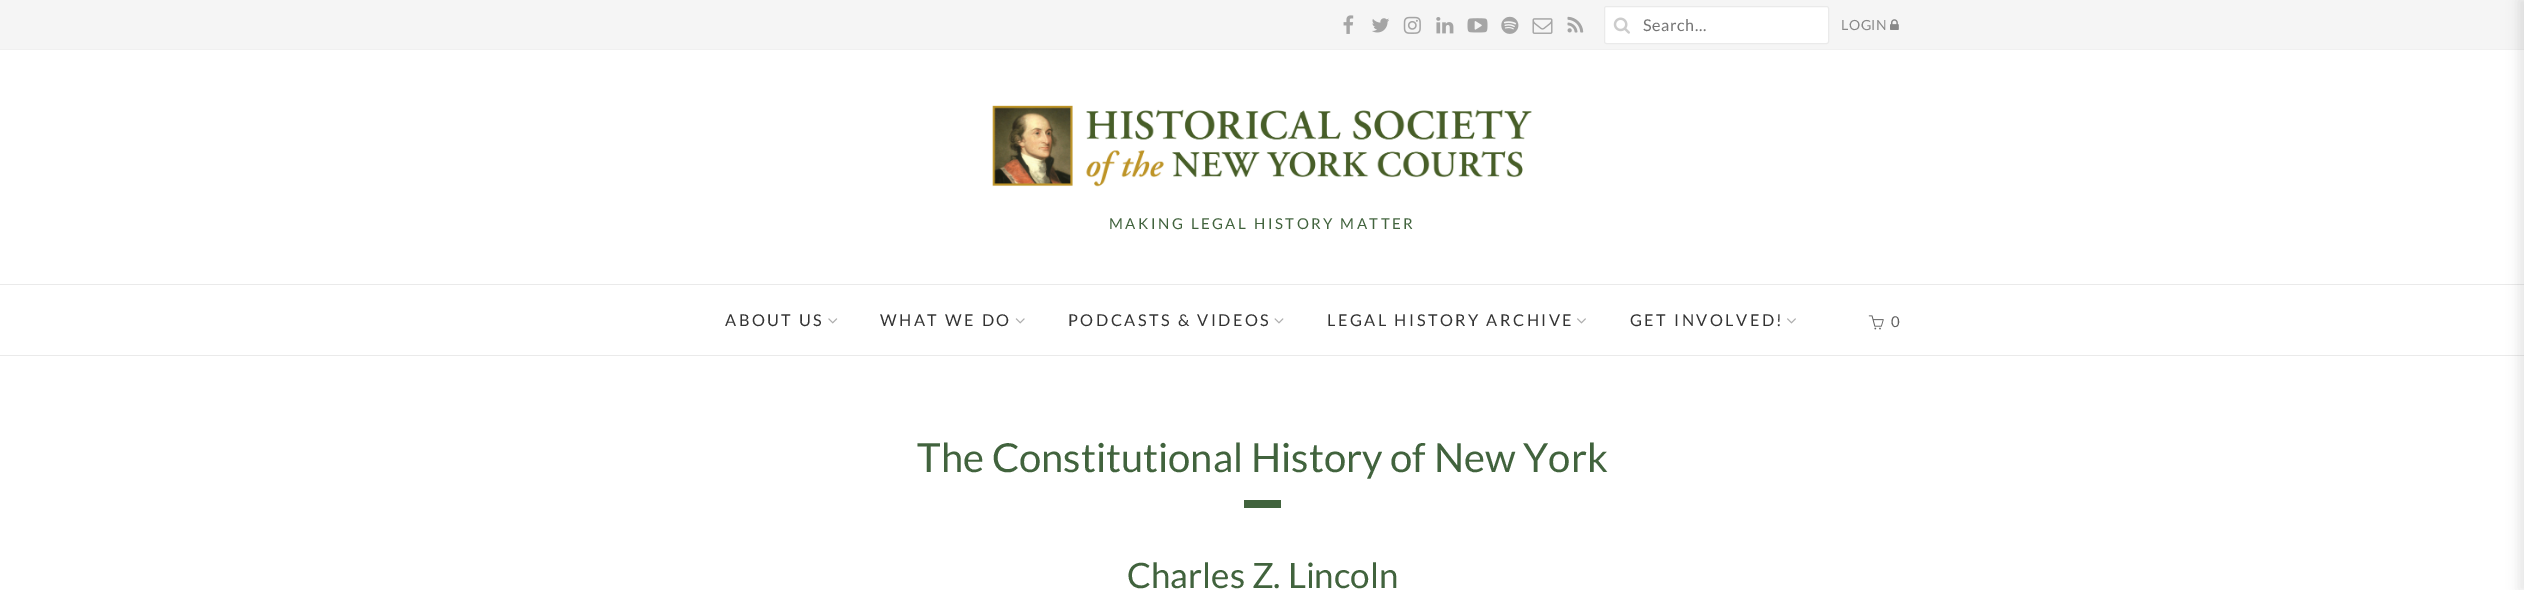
%!PS
<< /PageSize [2524 590] /PageUsesTransparency true >> setpagedevice
/alpha { dup .setfillconstantalpha .setstrokeconstantalpha } def
/roundrect { 5 dict begin { /r /h /w /y /x } { exch def } forall
  x r add y moveto x w add y 2 copy h add r arct x w add y h add x 1 index r arct
  x y h add x y r arct x y 2 copy exch w add exch r arct closepath end } def
/shadow { 12 dict begin { /a /b /q /h /w /y /x } { exch def } forall gsave /was 0 def
  9 -2 -9 { dup b mul 4 div /e exch def 1 sub .425 mul 2.718 exch exp 1 add a .99 .min exch div /now exch def
    1 1 now sub 1 was sub div sub alpha /was now def
    w h .min e 2 mul add 0 gt { x e sub y e sub w e 2 mul add h e 2 mul add
      q e add b .6 mul add w h .min 2 div e add .min 0 .max roundrect fill } if } for grestore end } def
/picture { 5 dict begin { /h /w /y /x /name } { exch def } forall
  gsave x y translate w h scale
  w h 8 [w 0 0 h 0 0] name (r) file false 3 colorimage grestore end } def
0 .pushpdf14devicefilter
0 590 translate 1 -1 scale
4 setmiterlimit
1 setgray
0 0 2524 590 rectfill
0.961 setgray
0 0 2524 49 rectfill
0.941 setgray
0 49 2524 1 rectfill
(img1.rgb) 1343 15 11 19 picture
(img2.rgb) 1372 18 17 15 picture
(img3.rgb) 1403 16 18 18 picture
(img4.rgb) 1436 17 18 17 picture
(img5.rgb) 1467 18 21 15 picture
(img6.rgb) 1501 16 18 18 picture
(img7.rgb) 1532 18 21 16 picture
(img8.rgb) 1567 16 17 17 picture
1 setgray
1604.5 6.5 224 37 2 roundrect gsave fill grestore
0.918 setgray
stroke
(img9.rgb) 1613 17 17 17 picture
/Lato-Regular [16.25 0 0 -16.25 0 0] selectfont
0.459 setgray
1643 31 moveto 0.6 0 (Search...) ashow
/Lato-Regular [14 0 0 -14 0 0] selectfont
0.533 setgray
1841 30 moveto 0.6 0 (LOGIN) ashow
(img10.rgb) 1890 19 9 11 picture
(img11.rgb) 992 105 540 82 picture
/Lato-Regular [15 0 0 -15 0 0] selectfont
0.255 0.388 0.239 setrgbcolor
1109 229 moveto 2.5 0 (MAKING LEGAL HISTORY MATTER) ashow
0.918 setgray
0 284 2524 1 rectfill
0 355 2524 1 rectfill
/Lato-Regular [16.25 0 0 -16.25 0 0] selectfont
0.2 setgray
725 326 moveto 2.5 0 (ABOUT US) ashow
(img12.rgb) 828 318 10 6 picture
880 326 moveto 2.5 0 (WHAT WE DO) ashow
(img13.rgb) 1015 318 10 6 picture
1068 326 moveto 2.5 0 (PODCASTS & VIDEOS) ashow
(img14.rgb) 1274 318 10 6 picture
1327 326 moveto 2.5 0 (LEGAL HISTORY ARCHIVE) ashow
(img15.rgb) 1577 318 9 6 picture
1630 326 moveto 2.5 0 (GET INVOLVED!) ashow
(img15.rgb) 1787 318 9 6 picture
(img16.rgb) 1868 315 16 15 picture
/Lato-Regular [15 0 0 -15 0 0] selectfont
0.376 setgray
1891 327 moveto (0) show
/Lato-Regular [40 0 0 -40 0 0] selectfont
0.255 0.388 0.239 setrgbcolor
917 472 moveto (The Constitutional History of New York) show
1244 500 37 8 rectfill
/Lato-Regular [35 0 0 -35 0 0] selectfont
1127 588 moveto (Charles Z. Lincoln) show
0 setgray
2519 0 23 590 0 6 0.1 shadow
.poppdf14devicefilter showpage
